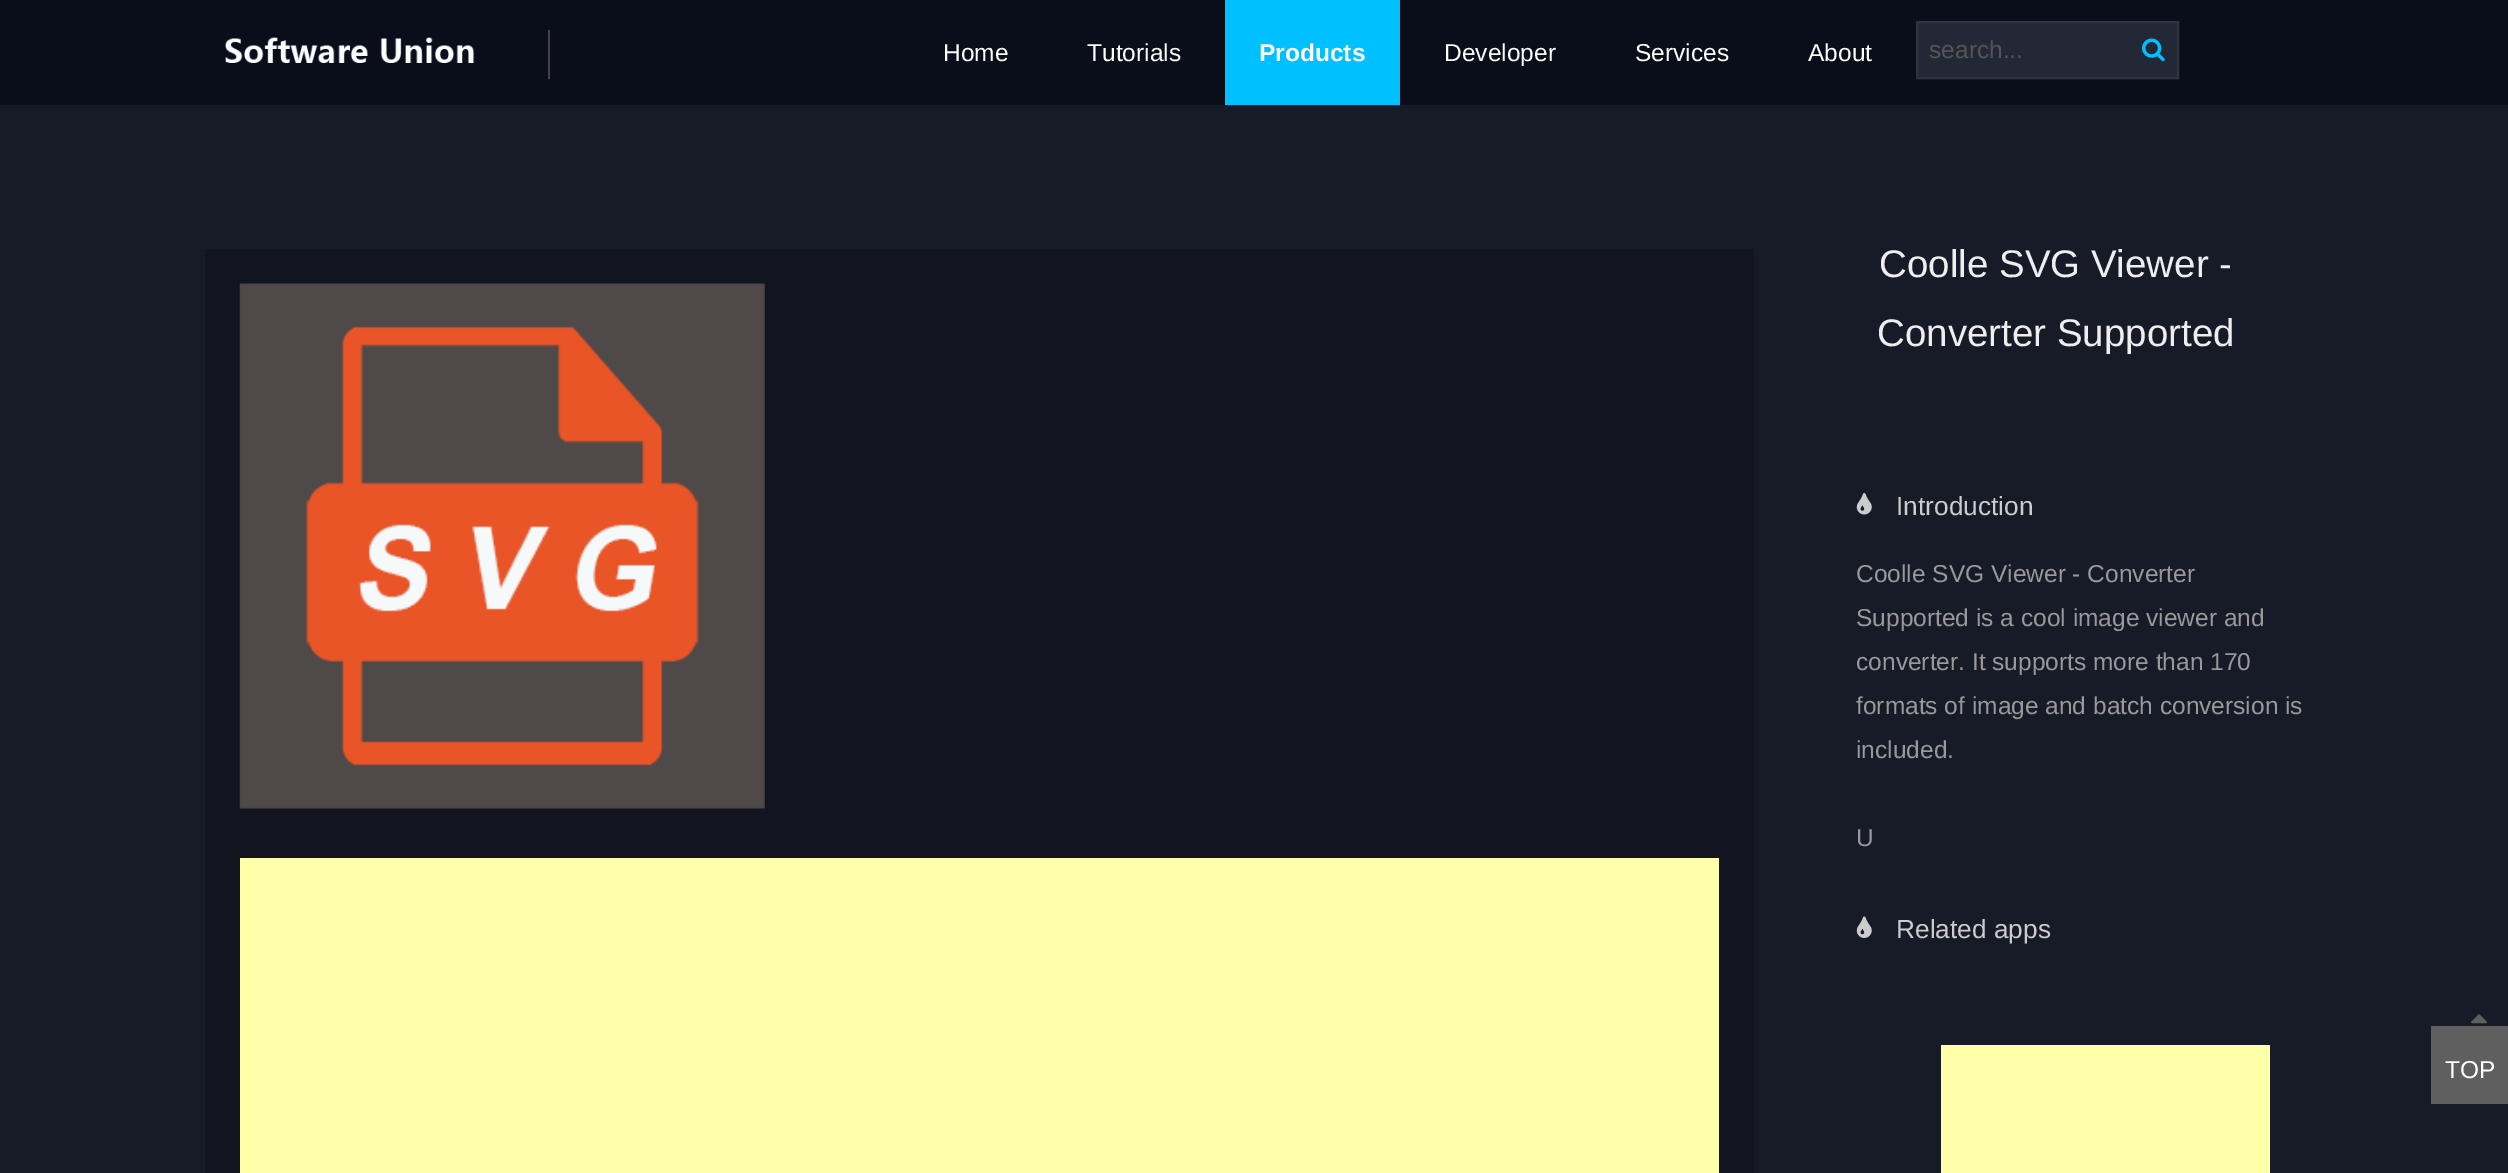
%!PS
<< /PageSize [2508 1173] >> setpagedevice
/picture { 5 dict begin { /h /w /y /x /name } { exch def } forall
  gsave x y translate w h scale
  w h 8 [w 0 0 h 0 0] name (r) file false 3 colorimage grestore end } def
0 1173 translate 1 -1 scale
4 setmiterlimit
0.09 0.106 0.153 setrgbcolor
0 0 2508 1173 rectfill
0.039 0.055 0.106 setrgbcolor
0 0 2508 105 rectfill
0.255 0.263 0.271 setrgbcolor
548 30 2 49 rectfill
(img1.rgb) 225 37 250 26 picture
/LiberationSans-Regular [24.5 0 0 -24.5 0 0] selectfont
1 setgray
943 61 moveto (Home) show
1087 61 moveto (Tutorials) show
0 0.753 1 setrgbcolor
1225 0 175 105 rectfill
/LiberationSans-Bold [24.5 0 0 -24.5 0 0] selectfont
1 setgray
1259 61 moveto (Products) show
/LiberationSans-Regular [24.5 0 0 -24.5 0 0] selectfont
1444 61 moveto (Developer) show
1635 61 moveto (Services) show
1808 61 moveto (About) show
0.137 0.157 0.216 setrgbcolor
newpath 1917 22 moveto 2178 22 lineto 2178 78 lineto 1917 78 lineto closepath gsave fill grestore
0.18 0.204 0.243 setrgbcolor
2 setlinewidth
stroke
0.333 setgray
1929 58 moveto (search...) show
(img2.rgb) 2142 38 23 24 picture
0.071 0.082 0.122 setrgbcolor
205 249 1549 924 rectfill
(img3.rgb) 239 283 526 526 picture
1 1 0.667 setrgbcolor
240 858 1479 315 rectfill
/LiberationSans-Regular [38.5 0 0 -38.5 0 0] selectfont
0.933 setgray
1879 277 moveto (Coolle SVG Viewer -) show
1877 346 moveto (Converter Supported) show
(img4.rgb) 1856 493 16 22 picture
/LiberationSans-Regular [26.25 0 0 -26.25 0 0] selectfont
0.8 setgray
1896 515 moveto (Introduction) show
/LiberationSans-Regular [24.5 0 0 -24.5 0 0] selectfont
0.6 setgray
1856 582 moveto (Coolle SVG Viewer - Converter) show
1856 626 moveto (Supported is a cool image viewer and) show
1856 670 moveto (converter. It supports more than 170) show
1856 714 moveto (formats of image and batch conversion is) show
1856 758 moveto (included.) show
1856 846 moveto (U) show
(img5.rgb) 1856 916 16 22 picture
/LiberationSans-Regular [26.25 0 0 -26.25 0 0] selectfont
0.8 setgray
1896 938 moveto (Related apps) show
1 1 0.667 setrgbcolor
1941 1045 329 128 rectfill
0.373 setgray
2431 1026 77 78 rectfill
(img6.rgb) 2471 1014 16 10 picture
/LiberationSans-Regular [24.5 0 0 -24.5 0 0] selectfont
1 setgray
2445 1078 moveto (TOP) show
showpage
